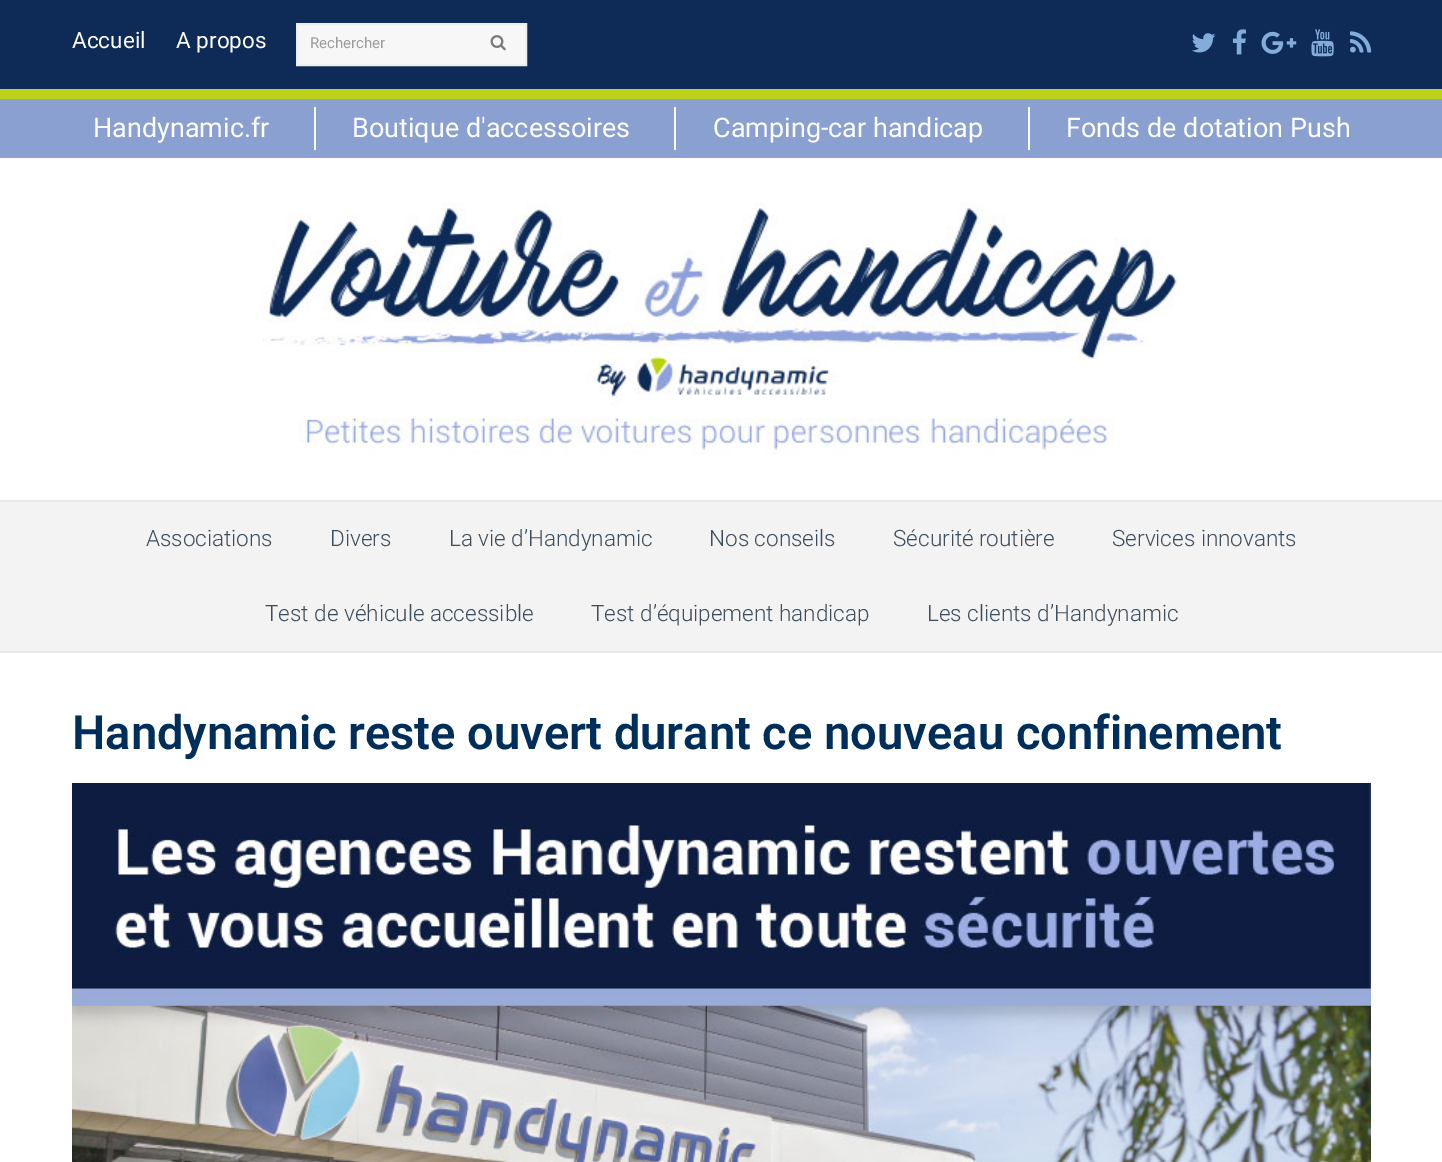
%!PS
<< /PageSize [1442 1162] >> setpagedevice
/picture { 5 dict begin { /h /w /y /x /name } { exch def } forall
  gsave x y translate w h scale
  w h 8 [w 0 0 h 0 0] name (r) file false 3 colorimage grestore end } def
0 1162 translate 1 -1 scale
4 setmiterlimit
1 setgray
0 0 1442 1162 rectfill
0.055 0.169 0.345 setrgbcolor
0 0 1442 89 rectfill
0.773 0.804 0.231 setrgbcolor
0 89 1442 1 rectfill
/Roboto-Regular [22.5 0 0 -22.5 0 0] selectfont
1 setgray
72 48 moveto (Accueil) show
176 48 moveto (A propos) show
0.969 setgray
newpath 297 24 moveto 526 24 lineto 526 65 lineto 297 65 lineto closepath gsave fill grestore
0.933 setgray
2 setlinewidth
stroke
/Roboto-Regular [15 0 0 -15 0 0] selectfont
0.616 setgray
310 48 moveto (Rechercher) show
(img1.rgb) 490 35 16 16 picture
(img2.rgb) 1192 33 24 20 picture
(img3.rgb) 1232 29 14 26 picture
(img4.rgb) 1261 31 36 23 picture
(img5.rgb) 1311 29 23 28 picture
(img6.rgb) 1350 31 22 22 picture
0.541 0.627 0.82 setrgbcolor
0 99 1442 59 rectfill
0.737 0.82 0.102 setrgbcolor
0 90 1442 9 rectfill
/Roboto-Regular [27 0 0 -27 0 0] selectfont
1 setgray
93 137 moveto (Handynamic.fr) show
314 107 2 43 rectfill
352 137 moveto (Boutique d'accessoires) show
674 107 2 43 rectfill
713 137 moveto (Camping-car handicap) show
1028 107 2 43 rectfill
1066 137 moveto (Fonds de dotation Push) show
(img7.rgb) 262 202 916 253 picture
0.953 setgray
0 502 1442 149 rectfill
0.91 0.922 0.922 setrgbcolor
0 500 1442 2 rectfill
0 651 1442 2 rectfill
/Roboto-Light [22.5 0 0 -22.5 0 0] selectfont
0.235 0.302 0.365 setrgbcolor
146 546 moveto (Associations) show
330 546 moveto (Divers) show
449 546 moveto (La vie d’Handynamic) show
709 546 moveto (Nos conseils) show
893 546 moveto (Sécurité routière) show
1112 546 moveto (Services innovants) show
265 621 moveto (Test de véhicule accessible) show
591 621 moveto (Test d’équipement handicap) show
927 621 moveto (Les clients d’Handynamic) show
/Roboto-SemiBold [47.1 0 0 -47.1 0 0] selectfont
0 0.18 0.353 setrgbcolor
72 749 moveto (Handynamic reste ouvert durant ce nouveau confinement) show
(img8.rgb) 72 783 1299 379 picture
showpage
